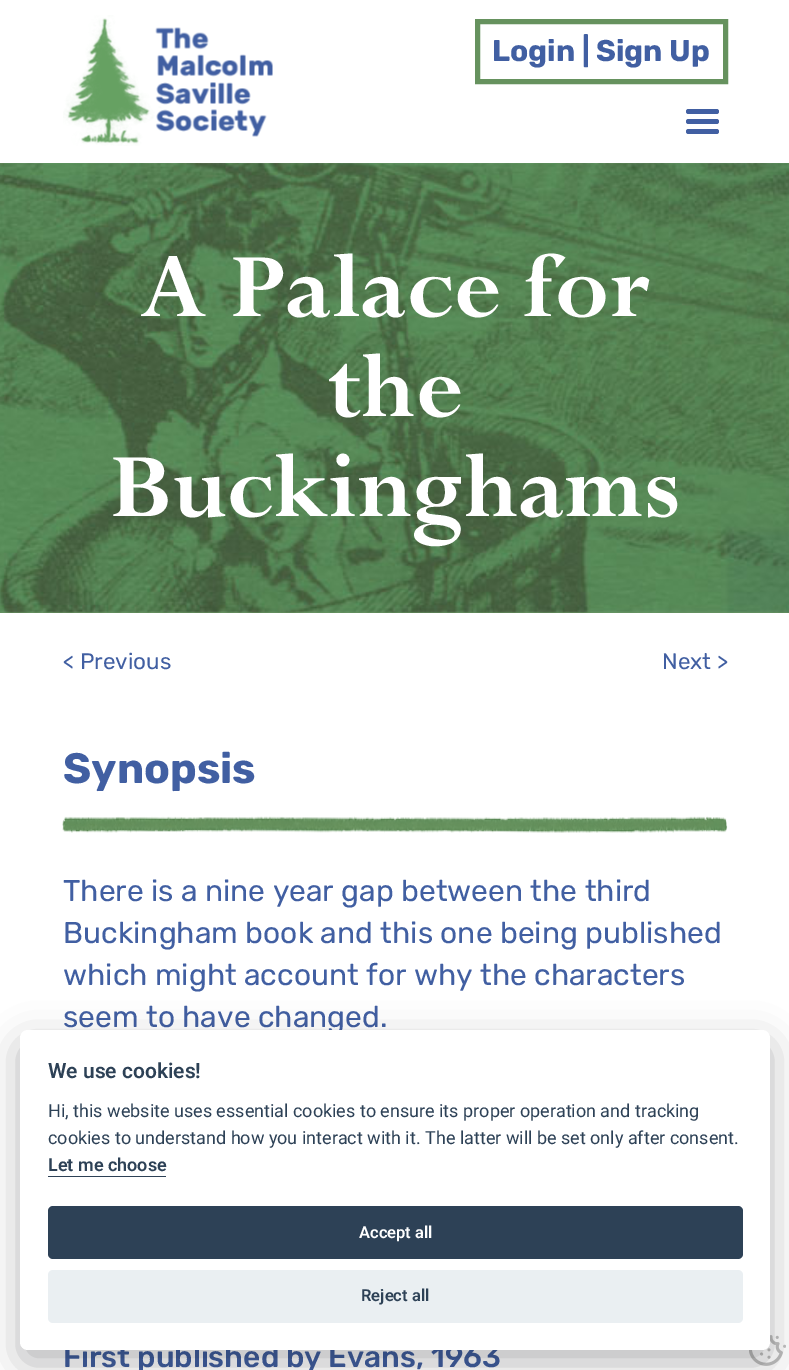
%!PS
<< /PageSize [789 1370] /PageUsesTransparency true >> setpagedevice
/alpha { dup .setfillconstantalpha .setstrokeconstantalpha } def
/roundrect { 5 dict begin { /r /h /w /y /x } { exch def } forall
  x r add y moveto x w add y 2 copy h add r arct x w add y h add x 1 index r arct
  x y h add x y r arct x y 2 copy exch w add exch r arct closepath end } def
/shadow { 12 dict begin { /a /b /q /h /w /y /x } { exch def } forall gsave /was 0 def
  9 -2 -9 { dup b mul 4 div /e exch def 1 sub .425 mul 2.718 exch exp 1 add a .99 .min exch div /now exch def
    1 1 now sub 1 was sub div sub alpha /was now def
    w h .min e 2 mul add 0 gt { x e sub y e sub w e 2 mul add h e 2 mul add
      q e add b .6 mul add w h .min 2 div e add .min 0 .max roundrect fill } if } for grestore end } def
/picture { 5 dict begin { /h /w /y /x /name } { exch def } forall
  gsave x y translate w h scale
  w h 8 [w 0 0 h 0 0] name (r) file false 3 colorimage grestore end } def
0 .pushpdf14devicefilter
0 1370 translate 1 -1 scale
4 setmiterlimit
1 setgray
0 0 789 1370 rectfill
(img1.rgb) 63 15 210 131 picture
0.4 0.573 0.369 setrgbcolor
5 setlinewidth
477.5 21.5 248 60 rectstroke
/Rubik-Bold [30 0 0 -30 0 0] selectfont
0.255 0.373 0.635 setrgbcolor
492 61 moveto (Login | Sign Up) show
686 109 33 5 2.5 roundrect fill
686 119 33 5 2.5 roundrect fill
686 129 33 5 2.5 roundrect fill
0.4 0.573 0.369 setrgbcolor
0 612 789 1 rectfill
(img2.rgb) 0 163 789 450 picture
/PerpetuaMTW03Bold-Bold [100 0 0 -100 0 0] selectfont
1 setgray
140 316 moveto (A Palace for) show
327 416 moveto (the) show
110 516 moveto (Buckinghams) show
/Rubik-Regular [22.5 0 0 -22.5 0 0] selectfont
0.255 0.373 0.635 setrgbcolor
63 669 moveto (< Previous) show
662 669 moveto (Next >) show
/Rubik-Bold [42.5 0 0 -42.5 0 0] selectfont
63 783 moveto (Synopsis) show
(img3.rgb) 62 816 666 17 picture
/Rubik-Regular [30 0 0 -30 0 0] selectfont
63 901 moveto (There is a nine year gap between the third) show
63 943 moveto (Buckingham book and this one being published) show
63 985 moveto (which might account for why the characters) show
63 1027 moveto (seem to have changed.) show
/Rubik-Medium [30 0 0 -30 0 0] selectfont
63 1367 moveto (First published by Evans, 1963) show
(img4.rgb) 749 1335 37 31 picture
0.008 0.008 0.012 setrgbcolor
20 1043 750 320 8 19 0.28 shadow
1 setgray
20 1030 750 320 8 roundrect fill
/Roboto-SemiBold [21 0 0 -21 0 0] selectfont
0.176 0.255 0.337 setrgbcolor
48 1078 moveto (We use cookies!) show
/Roboto-Regular [18 0 0 -18 0 0] selectfont
48 1117 moveto (Hi, this website uses essential cookies to ensure its proper operation and tracking) show
48 1144 moveto (cookies to understand how you interact with it. The latter will be set only after consent.) show
/Roboto-SemiBold [18 0 0 -18 0 0] selectfont
48 1171 moveto (Let me choose) show
48 1176 118 1 rectfill
48 1206 695 53 5 roundrect fill
/Roboto-SemiBold [16.5 0 0 -16.5 0 0] selectfont
1 setgray
359 1238 moveto (Accept all) show
0.918 0.937 0.949 setrgbcolor
48 1270 695 53 5 roundrect fill
0.176 0.255 0.337 setrgbcolor
361 1301 moveto (Reject all) show
.poppdf14devicefilter showpage
